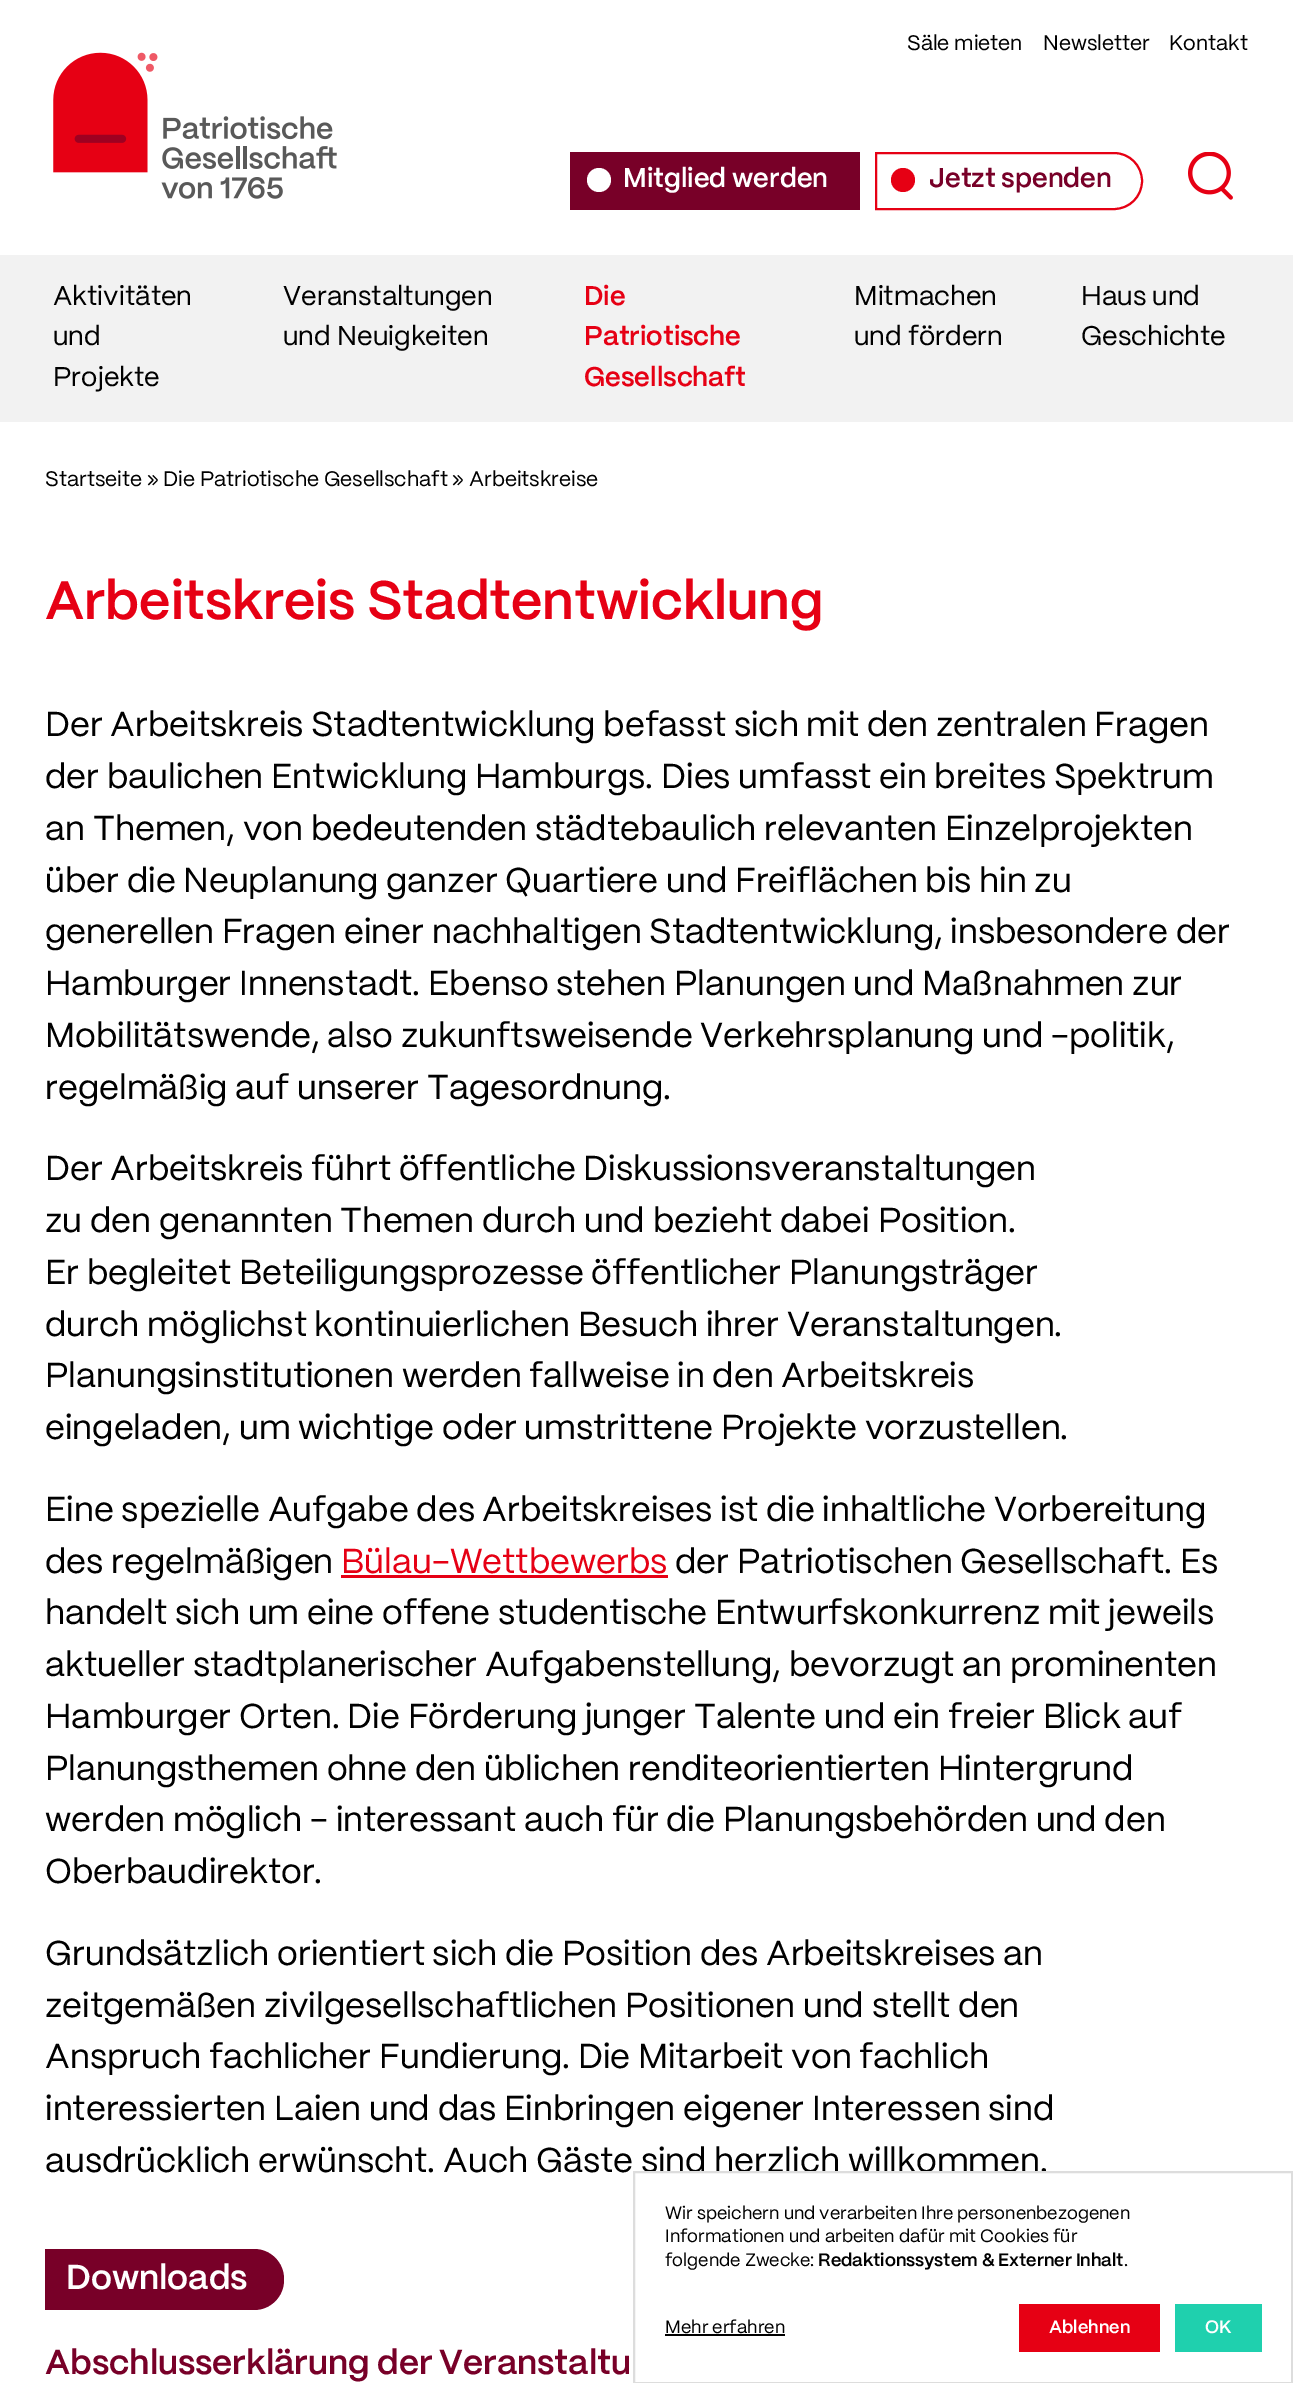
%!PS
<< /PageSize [1293 2383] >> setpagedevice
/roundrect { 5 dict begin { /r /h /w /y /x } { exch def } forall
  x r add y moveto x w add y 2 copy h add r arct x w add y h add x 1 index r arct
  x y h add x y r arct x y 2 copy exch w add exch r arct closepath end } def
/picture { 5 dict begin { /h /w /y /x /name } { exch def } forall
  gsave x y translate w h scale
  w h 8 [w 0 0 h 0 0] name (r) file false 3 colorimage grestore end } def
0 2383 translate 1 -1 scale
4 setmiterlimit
1 setgray
0 0 1293 2383 rectfill
(img1.rgb) 53 52 284 147 picture
/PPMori-Regular [21 0 0 -21 0 0] selectfont
0 setgray
907 50 moveto (Säle mieten) show
1043 50 moveto (Newsletter) show
1169 50 moveto (Kontakt) show
0.471 0 0.157 setrgbcolor
570 152 290 58 rectfill
1 setgray
newpath 599 180 12 0 360 arc closepath fill
/PPMori-SemiBold [27 0 0 -27 0 0] selectfont
623 187 moveto (Mitglied werden) show
0.902 0 0.078 setrgbcolor
2 setlinewidth
newpath 876 153 moveto 1114 153 lineto 1129.5 153 1142 165.5 1142 181 curveto 1142 196.5 1129.5 209 1114 209 curveto 876 209 lineto closepath stroke
newpath 903 180 12 0 360 arc closepath fill
0.471 0 0.157 setrgbcolor
929 187 moveto (Jetzt spenden) show
(img2.rgb) 1188 152 45 48 picture
0.949 setgray
0 255 1293 167 rectfill
/PPMori-Regular [27 0 0 -27 0 0] selectfont
0 setgray
53 305 moveto (Aktivitäten) show
53 345 moveto (und) show
53 386 moveto (Projekte) show
283 305 moveto (Veranstaltungen) show
283 345 moveto (und Neuigkeiten) show
/PPMori-SemiBold [27 0 0 -27 0 0] selectfont
0.902 0 0.078 setrgbcolor
584 305 moveto (Die) show
584 345 moveto (Patriotische) show
584 386 moveto (Gesellschaft) show
/PPMori-Regular [27 0 0 -27 0 0] selectfont
0 setgray
854 305 moveto (Mitmachen) show
854 345 moveto (und fördern) show
1081 305 moveto (Haus und) show
1081 345 moveto (Geschichte) show
/PPMori-Regular [21 0 0 -21 0 0] selectfont
45 486 moveto (Startseite » Die Patriotische Gesellschaft » Arbeitskreise) show
/PPMori-SemiBold [54 0 0 -54 0 0] selectfont
0.902 0 0.078 setrgbcolor
45 619 moveto (Arbeitskreis Stadtentwicklung) show
/PPMori-Regular [34.5 0 0 -34.5 0 0] selectfont
0 setgray
45 736 moveto (Der Arbeitskreis Stadtentwicklung befasst sich mit den zentralen Fragen) show
45 788 moveto (der baulichen Entwicklung Hamburgs. Dies umfasst ein breites Spektrum) show
45 840 moveto (an Themen, von bedeutenden städtebaulich relevanten Einzelprojekten) show
45 892 moveto (über die Neuplanung ganzer Quartiere und Freiflächen bis hin zu) show
45 943 moveto (generellen Fragen einer nachhaltigen Stadtentwicklung, insbesondere der) show
45 995 moveto (Hamburger Innenstadt. Ebenso stehen Planungen und Maßnahmen zur) show
45 1047 moveto (Mobilitätswende, also zukunftsweisende Verkehrsplanung und -politik,) show
45 1099 moveto (regelmäßig auf unserer Tagesordnung.) show
45 1180 moveto (Der Arbeitskreis führt öffentliche Diskussionsveranstaltungen) show
45 1232 moveto (zu den genannten Themen durch und bezieht dabei Position.) show
45 1284 moveto (Er begleitet Beteiligungsprozesse öffentlicher Planungsträger) show
45 1336 moveto (durch möglichst kontinuierlichen Besuch ihrer Veranstaltungen.) show
45 1387 moveto (Planungsinstitutionen werden fallweise in den Arbeitskreis) show
45 1439 moveto (eingeladen, um wichtige oder umstrittene Projekte vorzustellen.) show
45 1521 moveto (Eine spezielle Aufgabe des Arbeitskreises ist die inhaltliche Vorbereitung) show
45 1573 moveto (des regelmäßigen) show
0.902 0 0.078 setrgbcolor
341 1573 moveto (Bülau-Wettbewerbs) show
341 1575 327 3 rectfill
0 setgray
675 1573 moveto (der Patriotischen Gesellschaft. Es) show
45 1624 moveto (handelt sich um eine offene studentische Entwurfskonkurrenz mit jeweils) show
45 1676 moveto (aktueller stadtplanerischer Aufgabenstellung, bevorzugt an prominenten) show
45 1728 moveto (Hamburger Orten. Die Förderung junger Talente und ein freier Blick auf) show
45 1780 moveto (Planungsthemen ohne den üblichen renditeorientierten Hintergrund) show
45 1831 moveto (werden möglich - interessant auch für die Planungsbehörden und den) show
45 1883 moveto (Oberbaudirektor.) show
45 1965 moveto (Grundsätzlich orientiert sich die Position des Arbeitskreises an) show
45 2017 moveto (zeitgemäßen zivilgesellschaftlichen Positionen und stellt den) show
45 2068 moveto (Anspruch fachlicher Fundierung. Die Mitarbeit von fachlich) show
45 2120 moveto (interessierten Laien und das Einbringen eigener Interessen sind) show
45 2172 moveto (ausdrücklich erwünscht. Auch Gäste sind herzlich willkommen.) show
0.471 0 0.157 setrgbcolor
224 2249 60 61 30 roundrect fill
45 2249 209 61 rectfill
/PPMori-SemiBold [34.5 0 0 -34.5 0 0] selectfont
1 setgray
66 2289 moveto (Downloads) show
0.471 0 0.157 setrgbcolor
45 2374 moveto (Abschlusserklärung der Veranstaltu) show
0.867 setgray
634 2172 658 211 rectstroke
/PPMori-Regular [18 0 0 -18 0 0] selectfont
0 setgray
665 2219 moveto (Wir speichern und verarbeiten Ihre personenbezogenen) show
665 2242 moveto (Informationen und arbeiten dafür mit Cookies für) show
665 2266 moveto (folgende Zwecke:) show
/PPMori-SemiBold [18 0 0 -18 0 0] selectfont
818 2266 moveto (Redaktionssystem & Externer Inhalt) show
/PPMori-Regular [18 0 0 -18 0 0] selectfont
1124 2266 moveto (.) show
665 2333 moveto (Mehr erfahren) show
665 2334 120 2 rectfill
0.902 0 0.078 setrgbcolor
1019 2304 141 48 rectfill
/PPMori-SemiBold [18 0 0 -18 0 0] selectfont
1 setgray
1049 2333 moveto (Ablehnen) show
0.122 0.816 0.682 setrgbcolor
1175 2304 87 48 rectfill
1 setgray
1205 2333 moveto (OK) show
showpage
